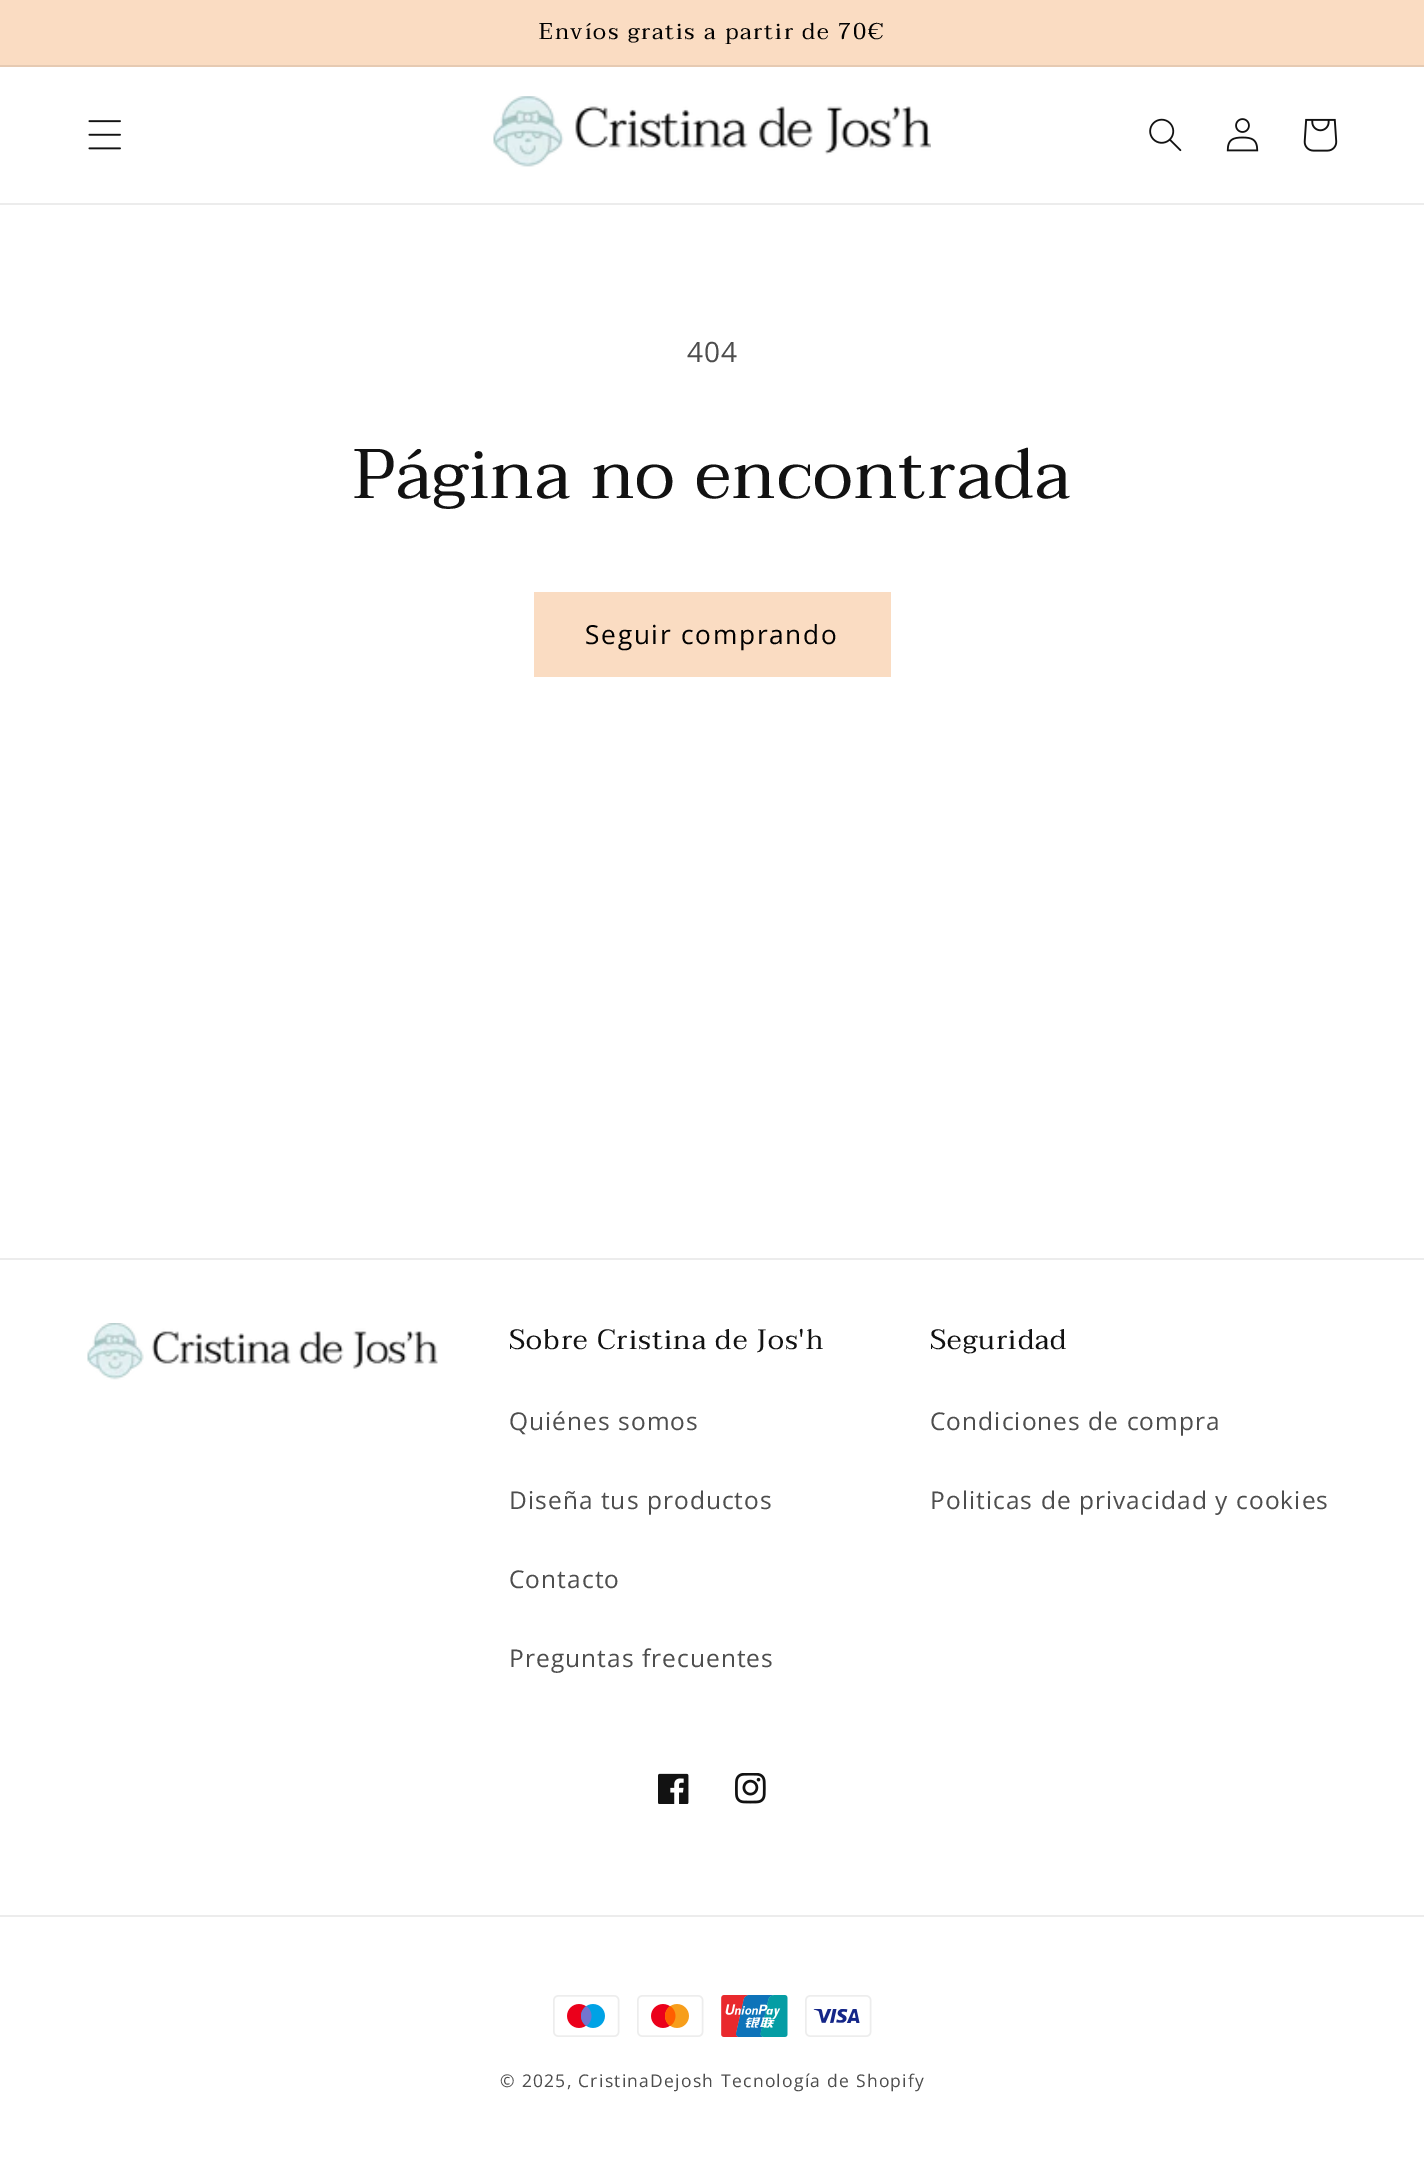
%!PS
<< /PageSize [1424 2161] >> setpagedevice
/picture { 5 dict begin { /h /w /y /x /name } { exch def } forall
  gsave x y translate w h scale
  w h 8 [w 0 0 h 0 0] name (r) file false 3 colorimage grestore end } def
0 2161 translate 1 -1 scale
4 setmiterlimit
1 setgray
0 0 1424 2161 rectfill
0.98 0.863 0.761 setrgbcolor
0 0 1424 65 rectfill
0.902 0.792 0.698 setrgbcolor
0 65 1424 2 rectfill
/Taviraj-Regular [22.75 0 0 -22.75 0 0] selectfont
0 setgray
539 39 moveto 1.75 0 (Envíos gratis a partir de 70€) ashow
0.925 setgray
0 203 1424 2 rectfill
(img1.rgb) 88 120 33 30 picture
(img2.rgb) 493 96 438 71 picture
(img3.rgb) 1149 118 33 34 picture
(img4.rgb) 1226 118 33 34 picture
(img5.rgb) 1303 118 35 34 picture
/OpenSans-Regular [28 0 0 -28 0 0] selectfont
0.302 setgray
687 362 moveto 1.05 0 (404) ashow
/Taviraj-Regular [70 0 0 -70 0 0] selectfont
0.071 setgray
353 498 moveto 1.05 0 (Página no encontrada) ashow
0.98 0.863 0.761 setrgbcolor
534 592 357 85 rectfill
/OpenSans-Regular [26.25 0 0 -26.25 0 0] selectfont
0 setgray
585 644 moveto 1.75 0 (Seguir comprando) ashow
0.925 setgray
0 1258 1424 2 rectfill
(img6.rgb) 87 1323 351 57 picture
/Taviraj-Regular [28 0 0 -28 0 0] selectfont
0.071 setgray
509 1349 moveto 1.05 0 (Sobre Cristina de Jos'h) ashow
/OpenSans-Regular [24.5 0 0 -24.5 0 0] selectfont
0.302 setgray
509 1430 moveto 1.05 0 (Quiénes somos) ashow
509 1509 moveto 1.05 0 (Diseña tus productos) ashow
509 1588 moveto 1.05 0 (Contacto) ashow
509 1667 moveto 1.05 0 (Preguntas frecuentes) ashow
/Taviraj-Regular [28 0 0 -28 0 0] selectfont
0.071 setgray
930 1349 moveto 1.05 0 (Seguridad) ashow
/OpenSans-Regular [24.5 0 0 -24.5 0 0] selectfont
0.302 setgray
930 1430 moveto 1.05 0 (Condiciones de compra) ashow
930 1509 moveto 1.05 0 (Politicas de privacidad y cookies) ashow
(img7.rgb) 658 1773 31 31 picture
(img8.rgb) 735 1773 31 31 picture
0.925 setgray
0 1915 1424 2 rectfill
(img9.rgb) 553 1995 67 42 picture
(img10.rgb) 637 1995 67 42 picture
(img11.rgb) 721 1995 67 42 picture
(img12.rgb) 805 1995 67 42 picture
/OpenSans-Regular [17.5 0 0 -17.5 0 0] selectfont
0.302 setgray
500 2087 moveto 1.25 0 (© 2025, CristinaDejosh) ashow
721 2087 moveto 1.25 0 (Tecnología de Shopify) ashow
showpage
